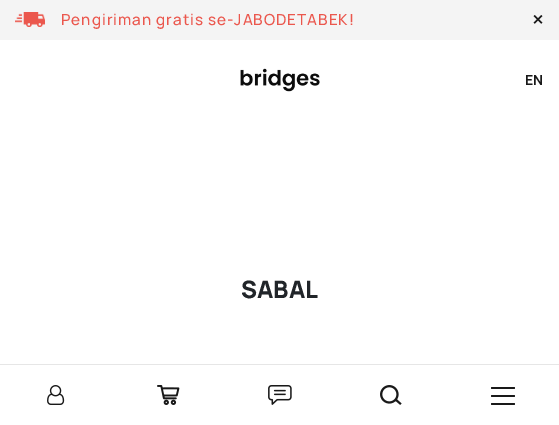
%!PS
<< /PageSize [559 425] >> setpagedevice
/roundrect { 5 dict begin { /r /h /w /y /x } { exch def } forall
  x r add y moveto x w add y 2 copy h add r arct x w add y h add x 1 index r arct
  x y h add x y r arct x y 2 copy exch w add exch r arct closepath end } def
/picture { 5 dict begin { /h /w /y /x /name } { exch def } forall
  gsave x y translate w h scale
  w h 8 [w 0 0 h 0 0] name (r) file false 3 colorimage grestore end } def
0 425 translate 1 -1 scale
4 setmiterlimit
1 setgray
0 0 559 425 rectfill
0.957 setgray
0 0 559 40 rectfill
(img1.rgb) 15 12 30 15 picture
/Manrope-Medium [15.25 0 0 -15.25 0 0] selectfont
0.922 0.341 0.302 setrgbcolor
61 25 moveto 1 0 (Pengiriman gratis se-JABODETABEK!) ashow
/Manrope-Medium [24 0 0 -24 0 0] selectfont
0.098 setgray
532 28 moveto (×) show
(img2.rgb) 240 68 80 24 picture
/Manrope-Bold [14 0 0 -14 0 0] selectfont
525 85 moveto (EN) show
/Manrope-ExtraBold [24 0 0 -24 0 0] selectfont
0.129 0.145 0.161 setrgbcolor
241 298 moveto (SABAL) show
0.902 setgray
0 364 559 1 rectfill
(img3.rgb) 47 385 18 20 picture
(img4.rgb) 157 385 23 20 picture
(img5.rgb) 268 385 24 20 picture
(img6.rgb) 380 385 22 20 picture
0.098 setgray
491 387 24 2 1 roundrect fill
491 395 24 2 1 roundrect fill
491 403 24 2 1 roundrect fill
showpage
